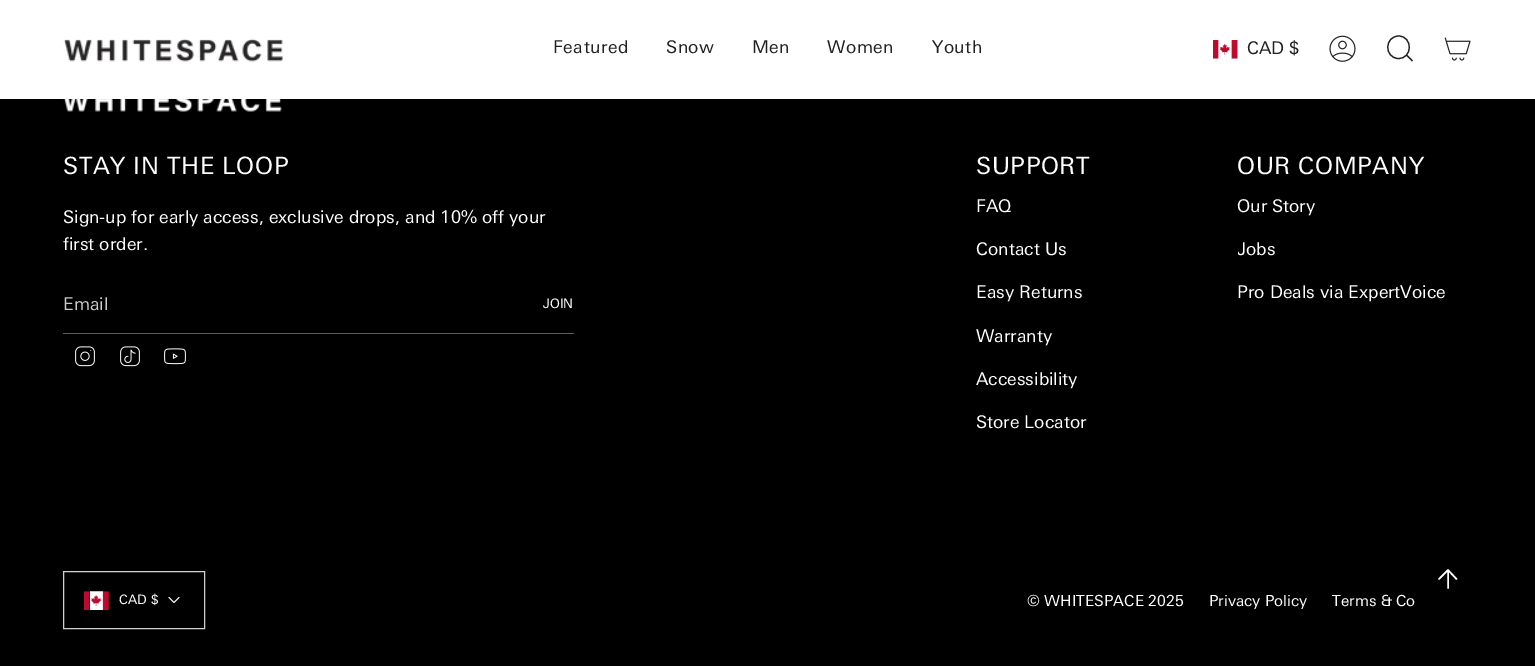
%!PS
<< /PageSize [1535 666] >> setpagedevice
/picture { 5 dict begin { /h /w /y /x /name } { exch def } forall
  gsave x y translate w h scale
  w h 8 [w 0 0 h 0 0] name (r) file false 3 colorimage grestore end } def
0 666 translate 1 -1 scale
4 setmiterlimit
0 setgray
0 0 1535 666 rectfill
1 setgray
0 0 1535 99 rectfill
(img1.rgb) 63 38 220 24 picture
/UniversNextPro-Regular [17.5 0 0 -17.5 0 0] selectfont
0.129 setgray
553 53 moveto 0.5 0 (Featured) ashow
666 53 moveto 0.5 0 (Snow) ashow
752 53 moveto 0.5 0 (Men) ashow
827 53 moveto 0.5 0 (Women) ashow
932 53 moveto 0.5 0 (Youth) ashow
(img2.rgb) 1213 40 25 19 picture
1247 54 moveto (CAD $) show
(img3.rgb) 1329 35 27 27 picture
1.2 setlinewidth
newpath 1398.5 36 moveto 1413 36 1413 59 1398 58.5 curveto 1384 57.5 1384.5 36.5 1398.5 36 curveto closepath 1406.5 55 moveto 1412.5 61 lineto stroke
(img4.rgb) 1444 37 27 24 picture
(img5.rgb) 63 99 219 13 picture
/UniversNextPro-Regular [23.75 0 0 -23.75 0 0] selectfont
1 setgray
63 174 moveto 0.6 0 (STAY IN THE LOOP) ashow
/UniversNextPro-Regular [17.5 0 0 -17.5 0 0] selectfont
63 223 moveto (Sign-up for early access, exclusive drops, and 10% off your) show
63 250 moveto (first order.) show
0.349 setgray
63 333 511 1 rectfill
0.8 setgray
63 310 moveto (Email) show
/UniversNextPro-Regular [13 0 0 -13 0 0] selectfont
1 setgray
543 308 moveto (JOIN) show
(img6.rgb) 75 346 20 21 picture
(img7.rgb) 120 346 20 21 picture
(img8.rgb) 164 348 22 17 picture
/UniversNextPro-Regular [23.75 0 0 -23.75 0 0] selectfont
976 174 moveto 0.6 0 (SUPPORT) ashow
/UniversNextPro-Regular [17.5 0 0 -17.5 0 0] selectfont
976 212 moveto (FAQ) show
976 255 moveto (Contact Us) show
976 298 moveto (Easy Returns) show
976 342 moveto (Warranty) show
976 385 moveto (Accessibility) show
976 428 moveto (Store Locator) show
/UniversNextPro-Regular [23.75 0 0 -23.75 0 0] selectfont
1237 174 moveto 0.6 0 (OUR COMPANY) ashow
/UniversNextPro-Regular [17.5 0 0 -17.5 0 0] selectfont
1237 212 moveto (Our Story) show
gsave
1238 196 220 128 rectclip
1237 255 moveto (Jobs) show
grestore
1237 298 moveto (Pro Deals via ExpertVoice) show
0.82 0.816 0.808 setrgbcolor
1 setlinewidth
63.5 571.5 141 57 rectstroke
(img9.rgb) 84 591 25 19 picture
/UniversNextPro-Regular [13 0 0 -13 0 0] selectfont
1 setgray
119 604 moveto (CAD $) show
0.8 setlinewidth
1 setlinecap
1 setlinejoin
newpath 169 597.5 moveto 174 602.5 lineto 179 597.5 lineto stroke
/UniversNextPro-Regular [15.25 0 0 -15.25 0 0] selectfont
1027 606 moveto (© WHITESPACE 2025) show
1209 606 moveto (Privacy Policy) show
1332 606 moveto (Terms & Co) show
1.5 setlinewidth
newpath 1448 588 moveto 1448 570 lineto 1448 570 moveto 1456.5 579 lineto 1448 570 moveto 1439 579 lineto stroke
showpage
